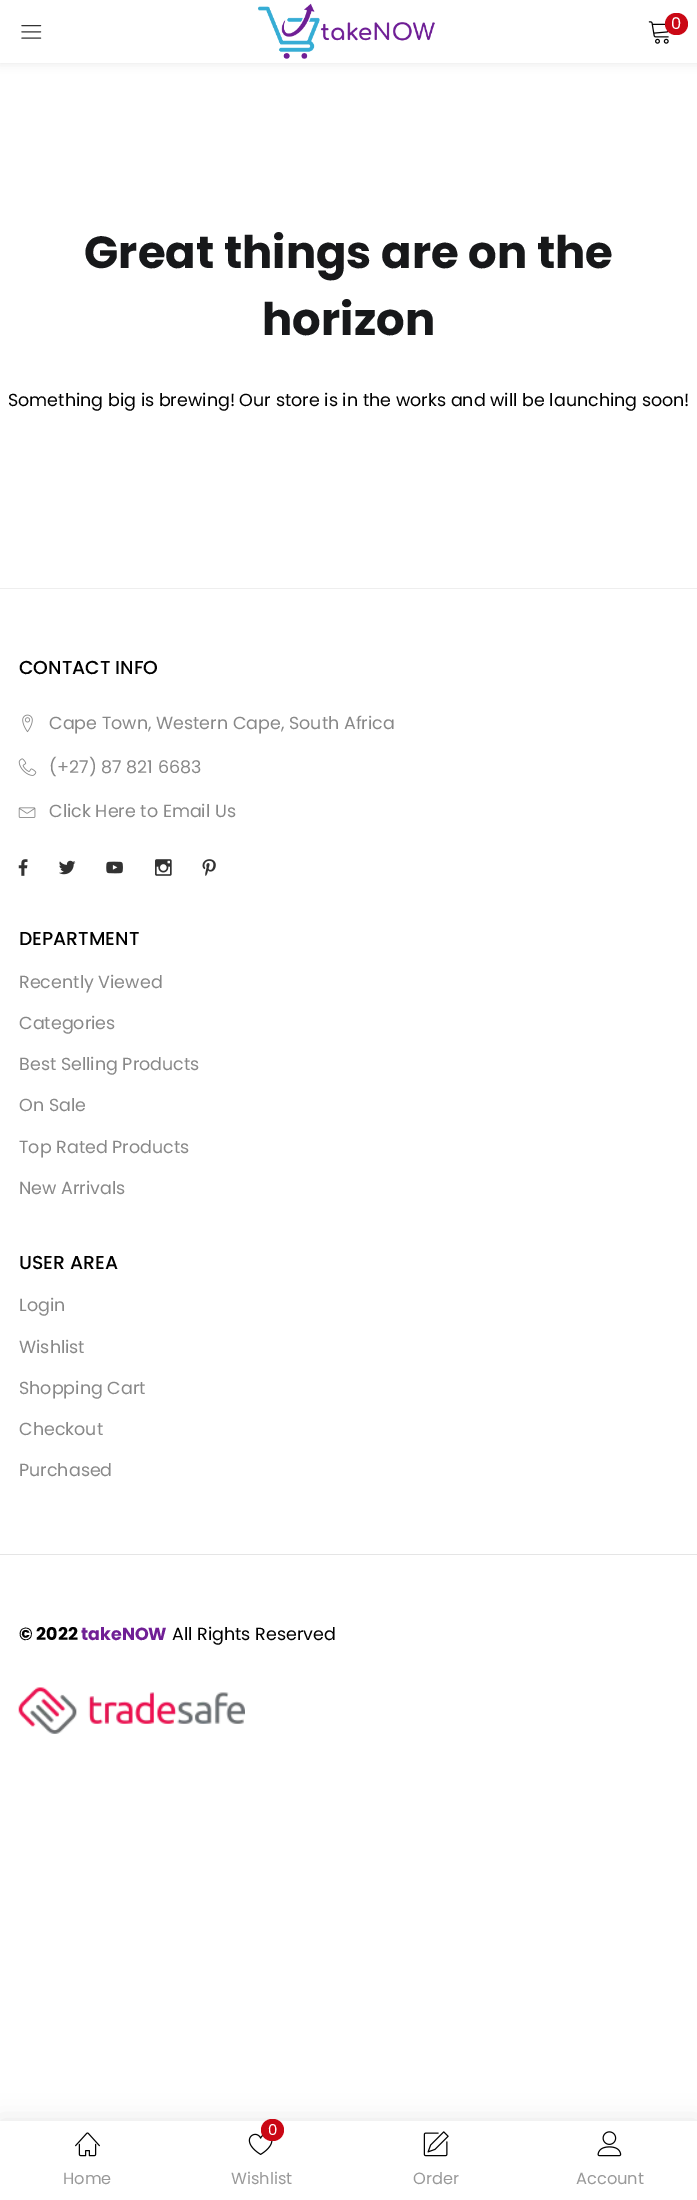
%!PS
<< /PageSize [697 2200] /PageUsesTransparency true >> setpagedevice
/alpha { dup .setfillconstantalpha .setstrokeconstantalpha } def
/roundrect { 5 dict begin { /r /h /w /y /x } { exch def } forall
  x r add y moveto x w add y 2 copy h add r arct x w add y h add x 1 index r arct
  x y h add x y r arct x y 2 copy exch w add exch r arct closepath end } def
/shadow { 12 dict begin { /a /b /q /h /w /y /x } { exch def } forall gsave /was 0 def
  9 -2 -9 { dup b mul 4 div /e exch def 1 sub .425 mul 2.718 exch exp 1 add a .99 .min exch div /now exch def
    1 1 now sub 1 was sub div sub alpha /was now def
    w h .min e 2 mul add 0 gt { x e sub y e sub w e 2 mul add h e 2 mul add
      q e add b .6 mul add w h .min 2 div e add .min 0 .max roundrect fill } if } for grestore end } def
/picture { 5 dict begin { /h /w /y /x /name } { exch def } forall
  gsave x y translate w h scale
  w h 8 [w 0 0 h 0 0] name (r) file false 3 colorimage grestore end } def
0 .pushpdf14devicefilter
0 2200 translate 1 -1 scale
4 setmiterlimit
1 setgray
0 0 697 2200 rectfill
0 setgray
0 0 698 63 0 5 0.1 shadow
1 setgray
0 0 697 63 rectfill
(img1.rgb) 258 3 177 56 picture
(img2.rgb) 648 21 21 23 picture
0.792 0.031 0.082 setrgbcolor
665 13 23 22 11 roundrect fill
/Poppins-Regular [16.25 0 0 -16.25 0 0] selectfont
1 setgray
671 29 moveto (0) show
(img3.rgb) 21 25 21 14 picture
/Poppins-Bold [45 0 0 -45 0 0] selectfont
0.09 0.094 0.102 setrgbcolor
84 268 moveto (Great things are on the) show
262 335 moveto (horizon) show
/Poppins-Regular [17.5 0 0 -17.5 0 0] selectfont
0 setgray
8 406 moveto (Something big is brewing! Our store is in the works and will be launching soon!) show
0.933 setgray
0 588 697 1 rectfill
/Poppins-Medium [18.75 0 0 -18.75 0 0] selectfont
0 setgray
19 674 moveto (CONTACT INFO) show
(img4.rgb) 22 714 11 19 picture
/Poppins-Regular [17.5 0 0 -17.5 0 0] selectfont
0.533 setgray
49 729 moveto (Cape Town, Western Cape, South Africa) show
(img5.rgb) 18 758 19 18 picture
49 773 moveto (\(+27\) 87 821 6683) show
(img6.rgb) 18 807 18 11 picture
49 817 moveto (Click Here to Email Us) show
(img7.rgb) 18 859 10 17 picture
(img8.rgb) 59 860 17 15 picture
(img9.rgb) 106 861 17 13 picture
(img10.rgb) 155 859 17 17 picture
(img11.rgb) 202 859 14 17 picture
/Poppins-Medium [18.75 0 0 -18.75 0 0] selectfont
0 setgray
19 945 moveto (DEPARTMENT) show
/Poppins-Regular [17.5 0 0 -17.5 0 0] selectfont
0.533 setgray
19 988 moveto (Recently Viewed) show
19 1029 moveto (Categories) show
19 1070 moveto (Best Selling Products) show
19 1111 moveto (On Sale) show
19 1153 moveto (Top Rated Products) show
19 1194 moveto (New Arrivals) show
/Poppins-Medium [18.75 0 0 -18.75 0 0] selectfont
0 setgray
19 1269 moveto (USER AREA) show
/Poppins-Regular [17.5 0 0 -17.5 0 0] selectfont
0.533 setgray
19 1311 moveto (Login) show
19 1353 moveto (Wishlist) show
19 1394 moveto (Shopping Cart) show
19 1435 moveto (Checkout) show
19 1476 moveto (Purchased) show
0.898 setgray
0 1554 697 1 rectfill
/Poppins-Bold [17.5 0 0 -17.5 0 0] selectfont
0 setgray
19 1640 moveto (© 2022) show
0.439 0.122 0.584 setrgbcolor
81 1640 moveto (takeNOW) show
/Poppins-Regular [17.5 0 0 -17.5 0 0] selectfont
0 setgray
172 1640 moveto (All Rights Reserved) show
(img12.rgb) 18 1687 227 47 picture
0 2121 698 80 0 12.5 0.1 shadow
1 setgray
0 2121 697 79 rectfill
(img13.rgb) 75 2132 25 25 picture
/Poppins-Regular [16.25 0 0 -16.25 0 0] selectfont
0.6 setgray
63 2184 moveto (Home) show
(img14.rgb) 248 2133 25 22 picture
0.792 0.031 0.082 setrgbcolor
261 2119 23 22 11 roundrect fill
/Poppins-Regular [15 0 0 -15 0 0] selectfont
1 setgray
268 2135 moveto (0) show
/Poppins-Regular [16.25 0 0 -16.25 0 0] selectfont
0.6 setgray
231 2184 moveto (Wishlist) show
(img15.rgb) 423 2131 26 26 picture
413 2184 moveto (Order) show
(img16.rgb) 597 2131 25 26 picture
576 2184 moveto (Account) show
.poppdf14devicefilter showpage
